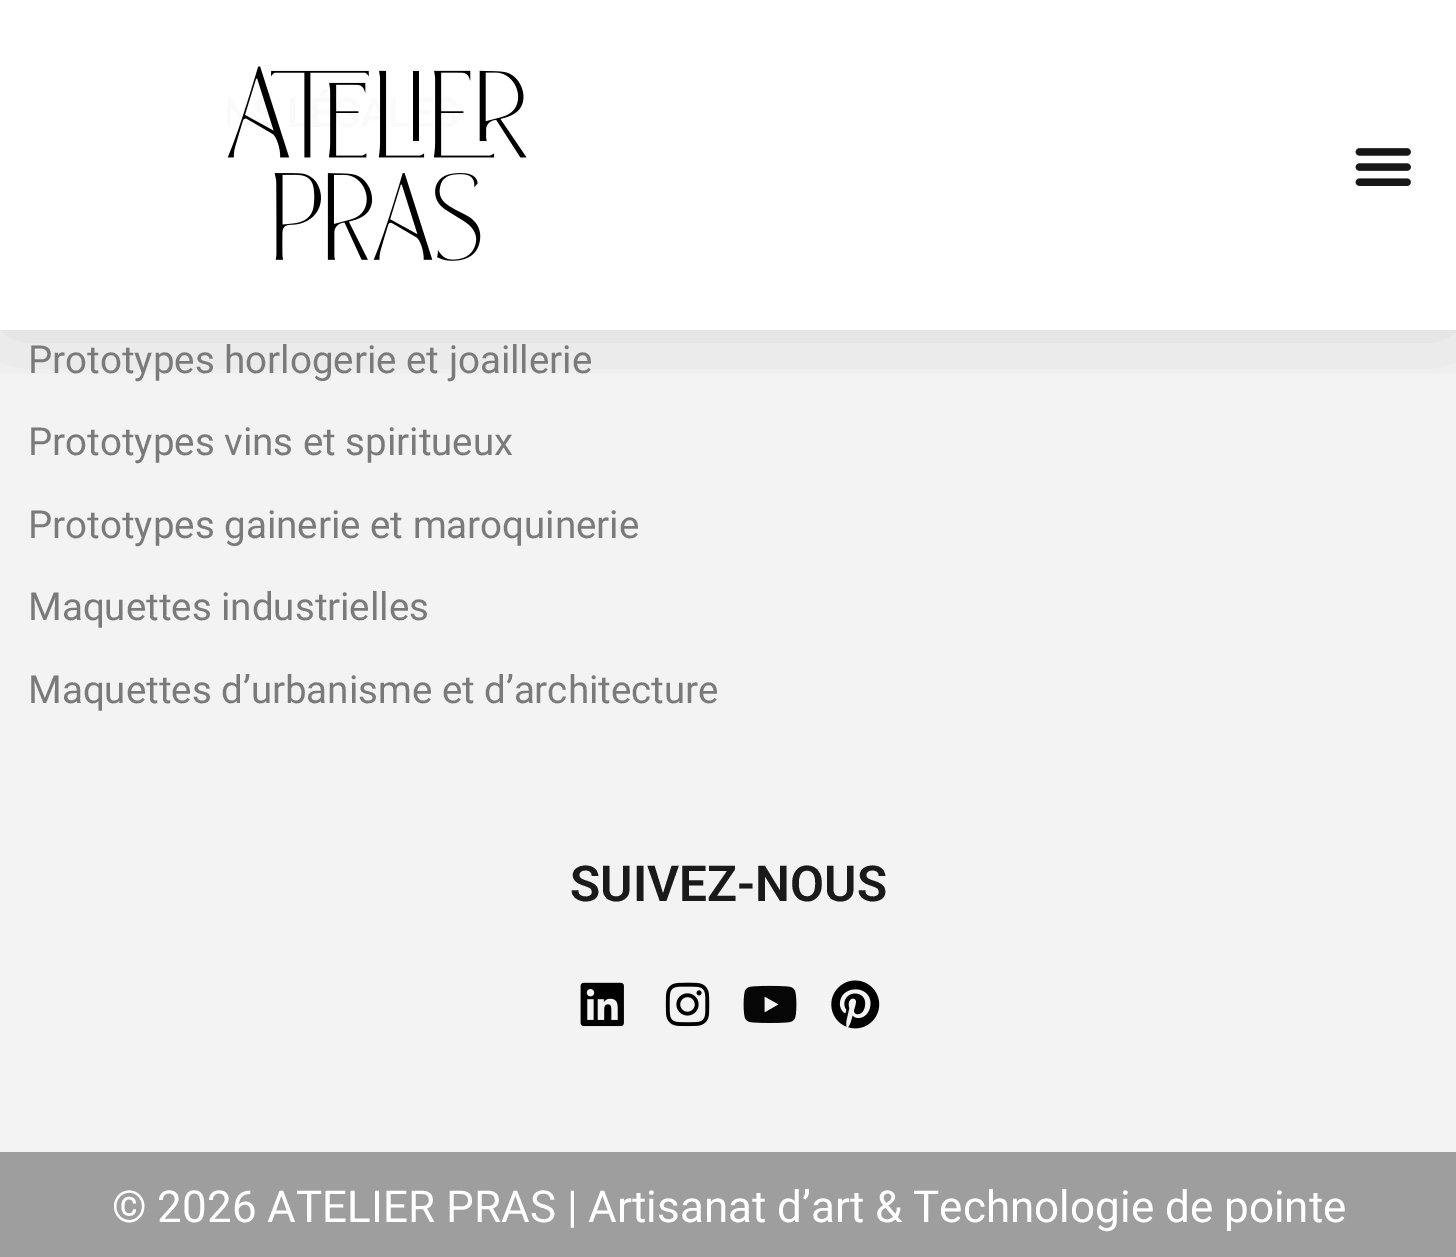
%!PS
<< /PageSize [1456 1257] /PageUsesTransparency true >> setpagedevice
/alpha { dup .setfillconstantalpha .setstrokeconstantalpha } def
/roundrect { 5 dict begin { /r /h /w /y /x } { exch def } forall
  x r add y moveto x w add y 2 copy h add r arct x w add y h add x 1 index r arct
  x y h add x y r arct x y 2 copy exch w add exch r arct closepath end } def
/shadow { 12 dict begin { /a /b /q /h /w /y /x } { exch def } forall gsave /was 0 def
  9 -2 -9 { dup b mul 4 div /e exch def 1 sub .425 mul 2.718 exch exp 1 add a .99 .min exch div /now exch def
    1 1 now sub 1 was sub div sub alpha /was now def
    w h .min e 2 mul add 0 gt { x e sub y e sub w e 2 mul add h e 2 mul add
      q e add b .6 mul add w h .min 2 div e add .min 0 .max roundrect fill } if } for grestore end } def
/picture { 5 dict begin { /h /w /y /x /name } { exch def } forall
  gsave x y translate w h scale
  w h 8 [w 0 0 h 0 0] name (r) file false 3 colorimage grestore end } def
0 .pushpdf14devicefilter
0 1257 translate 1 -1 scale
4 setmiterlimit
0.953 setgray
0 0 1456 1257 rectfill
1 setgray
0 0 1456 330 rectfill
gsave
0 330 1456 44 rectclip
0 setgray
0 0 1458 330 0 52 0.1 shadow
grestore
(img1.rgb) 227 66 300 195 picture
(img2.rgb) 1355 148 56 38 picture
/Roboto-Regular [38.5 0 0 -38.5 0 0] selectfont
0.478 setgray
28 373 moveto (Prototypes horlogerie et joaillerie) show
28 455 moveto (Prototypes vins et spiritueux) show
28 538 moveto (Prototypes gainerie et maroquinerie) show
28 620 moveto (Maquettes industrielles) show
28 703 moveto (Maquettes d’urbanisme et d’architecture) show
/Roboto-SemiBold [49.5 0 0 -49.5 0 0] selectfont
0.102 setgray
570 901 moveto (SUIVEZ-NOUS) show
(img3.rgb) 580 982 44 45 picture
(img4.rgb) 665 982 45 45 picture
(img5.rgb) 743 985 54 38 picture
(img6.rgb) 831 980 49 49 picture
0.62 setgray
0 1152 1456 105 rectfill
/Roboto-Regular [44 0 0 -44 0 0] selectfont
1 setgray
112 1222 moveto (© 2026 ATELIER PRAS | Artisanat d’art & Technologie de pointe) show
.poppdf14devicefilter showpage
